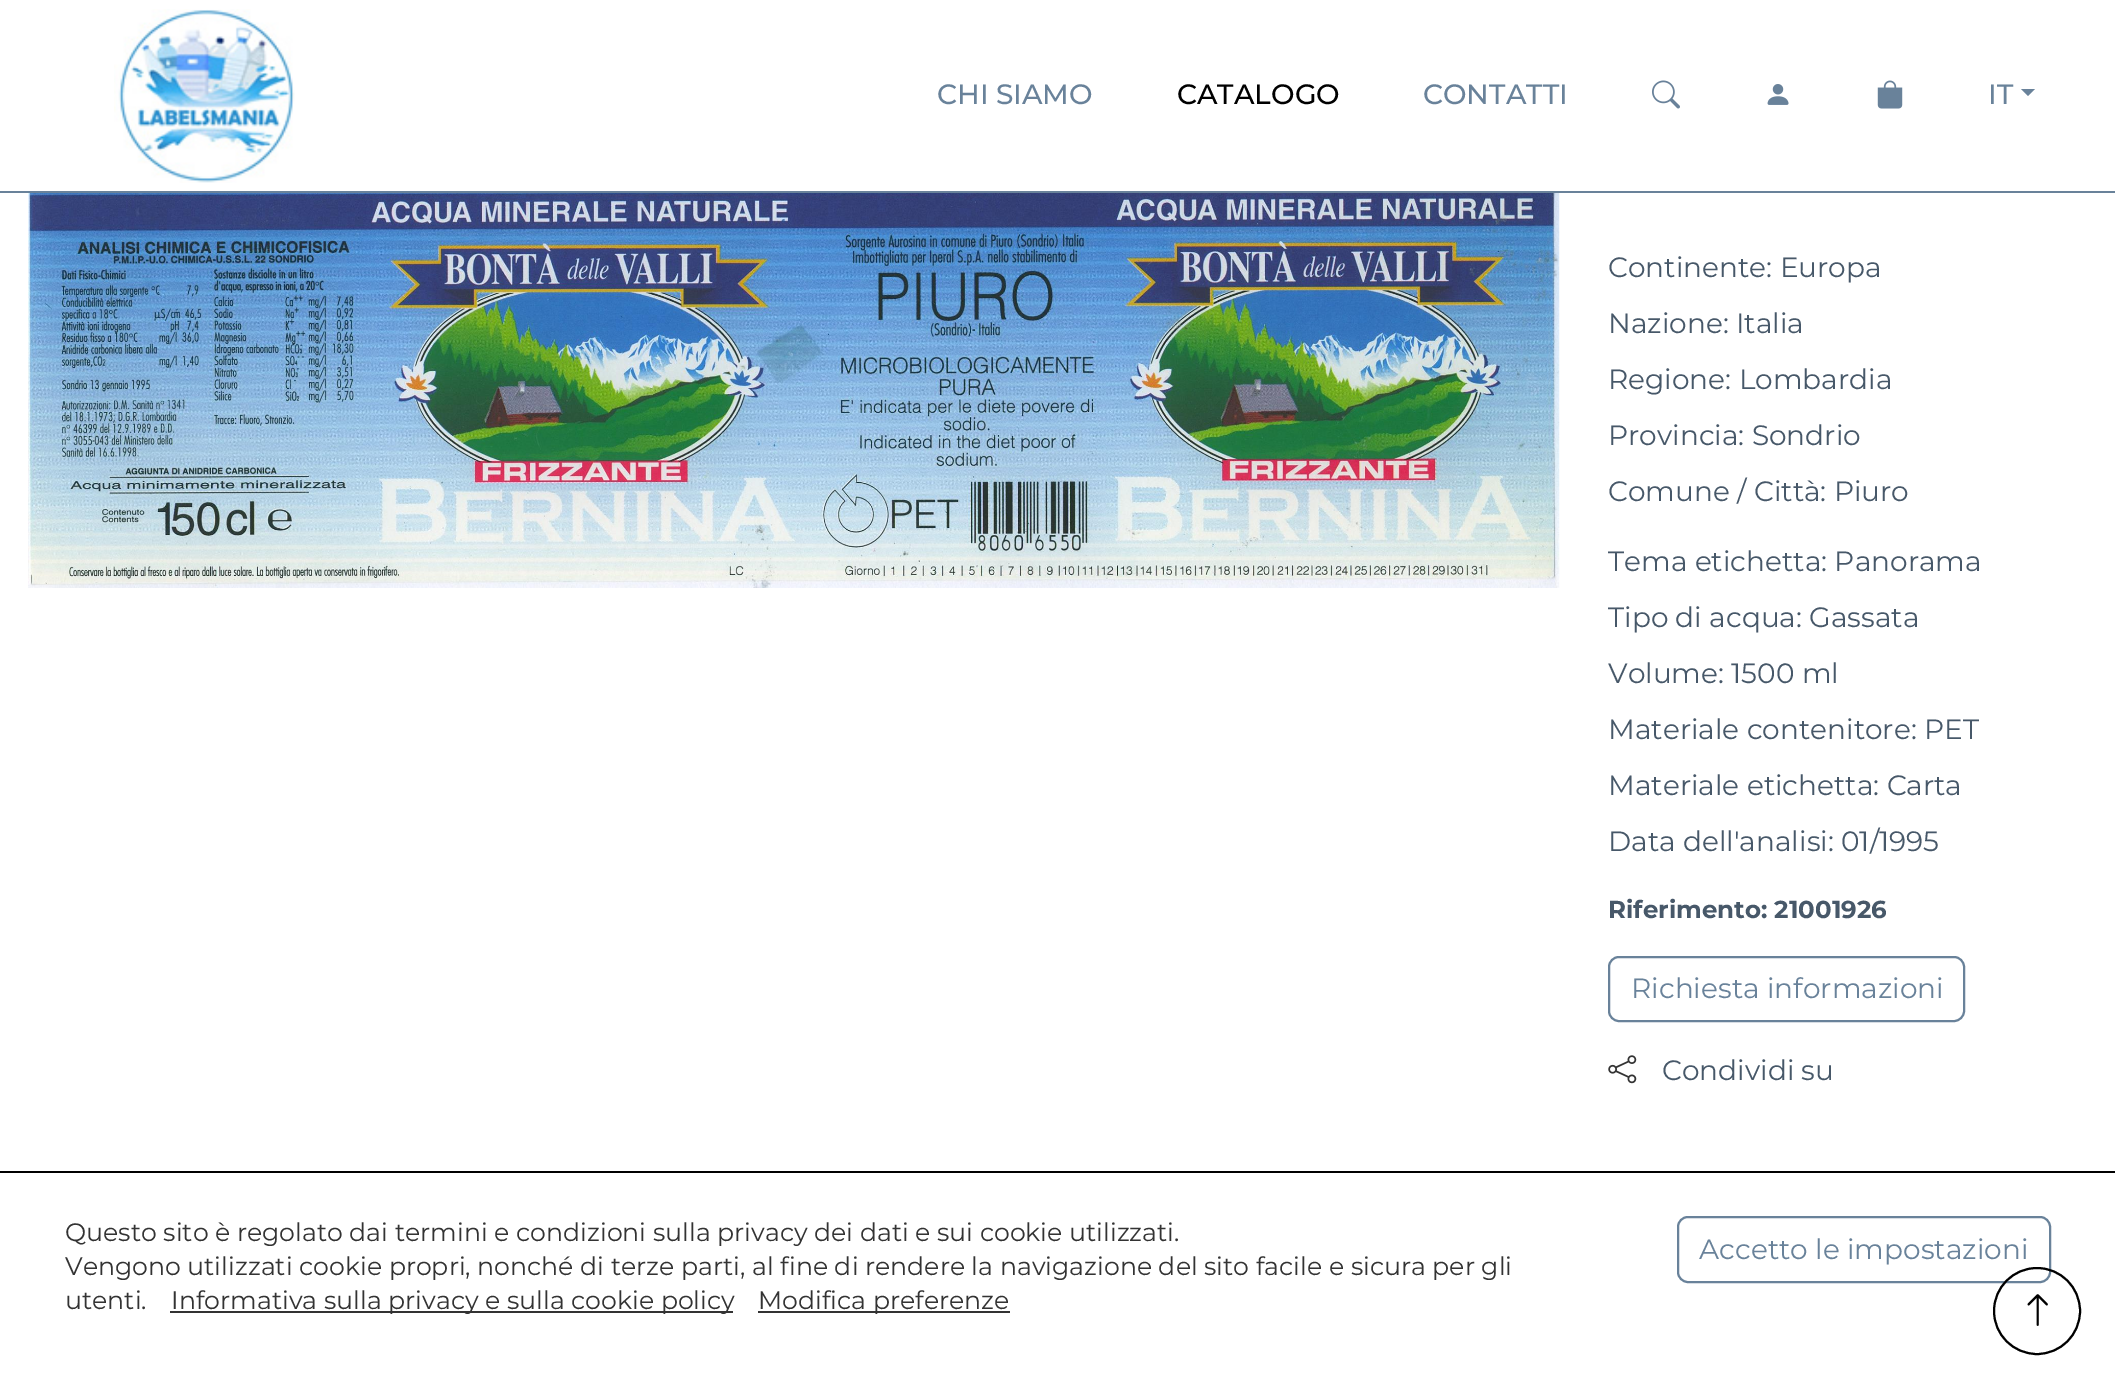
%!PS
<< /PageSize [2115 1389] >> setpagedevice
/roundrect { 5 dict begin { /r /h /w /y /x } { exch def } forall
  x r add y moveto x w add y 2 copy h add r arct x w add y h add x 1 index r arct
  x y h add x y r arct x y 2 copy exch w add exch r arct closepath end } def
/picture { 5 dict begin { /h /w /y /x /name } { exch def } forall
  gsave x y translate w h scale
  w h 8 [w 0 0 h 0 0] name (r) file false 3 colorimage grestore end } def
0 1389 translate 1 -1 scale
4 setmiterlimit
1 setgray
0 0 2115 1389 rectfill
0.412 0.51 0.604 setrgbcolor
0 191 2115 2 rectfill
(img1.rgb) 114 9 181 174 picture
/Montserrat-Medium [28 0 0 -28 0 0] selectfont
937 104 moveto (CHI SIAMO) show
0 setgray
1177 104 moveto (CATALOGO) show
0.412 0.51 0.604 setrgbcolor
1423 104 moveto (CONTATTI) show
(img2.rgb) 1652 80 28 29 picture
(img3.rgb) 1767 84 22 21 picture
(img4.rgb) 1877 80 26 29 picture
1988 104 moveto (IT) show
newpath 2021 89 moveto 2035 89 lineto 2028 96 lineto closepath fill
(img5.rgb) 28 193 1532 395 picture
/Montserrat-Regular [28 0 0 -28 0 0] selectfont
0.278 0.345 0.412 setrgbcolor
1608 277 moveto (Continente: Europa) show
1608 333 moveto (Nazione: Italia) show
1608 389 moveto (Regione: Lombardia) show
1608 445 moveto (Provincia: Sondrio) show
1608 501 moveto (Comune / Città: Piuro) show
1608 571 moveto (Tema etichetta: Panorama) show
1608 627 moveto (Tipo di acqua: Gassata) show
1608 683 moveto (Volume: 1500 ml) show
1608 739 moveto (Materiale contenitore: PET) show
1608 795 moveto (Materiale etichetta: Carta) show
1608 851 moveto (Data dell'analisi: 01/1995) show
/Montserrat-Bold [24.5 0 0 -24.5 0 0] selectfont
1608 918 moveto (Riferimento: 21001926) show
0.412 0.51 0.604 setrgbcolor
2 setlinewidth
1609 957 355 64 10 roundrect stroke
/Montserrat-Regular [28 0 0 -28 0 0] selectfont
1631 998 moveto (Richiesta informazioni) show
(img6.rgb) 1608 1055 29 29 picture
0.278 0.345 0.412 setrgbcolor
1662 1080 moveto (Condividi su) show
0 setgray
0 1171 2115 2 rectfill
/Montserrat-Regular [25.2 0 0 -25.2 0 0] selectfont
0.2 setgray
65 1241 moveto (Questo sito è regolato dai termini e condizioni sulla privacy dei dati e sui cookie utilizzati.) show
65 1275 moveto (Vengono utilizzati cookie propri, nonché di terze parti, al fine di rendere la navigazione del sito facile e sicura per gli) show
65 1309 moveto (utenti.) show
170 1311 563 2 rectfill
171 1309 moveto (Informativa sulla privacy e sulla cookie policy) show
758 1311 252 2 rectfill
758 1309 moveto (Modifica preferenze) show
0.412 0.51 0.604 setrgbcolor
1678 1217 372 65 10 roundrect stroke
/Montserrat-Regular [28 0 0 -28 0 0] selectfont
1699 1259 moveto (Accetto le impostazioni) show
0 setgray
newpath 2037 1311 43 0 360 arc closepath stroke
(img7.rgb) 2027 1294 21 32 picture
showpage
